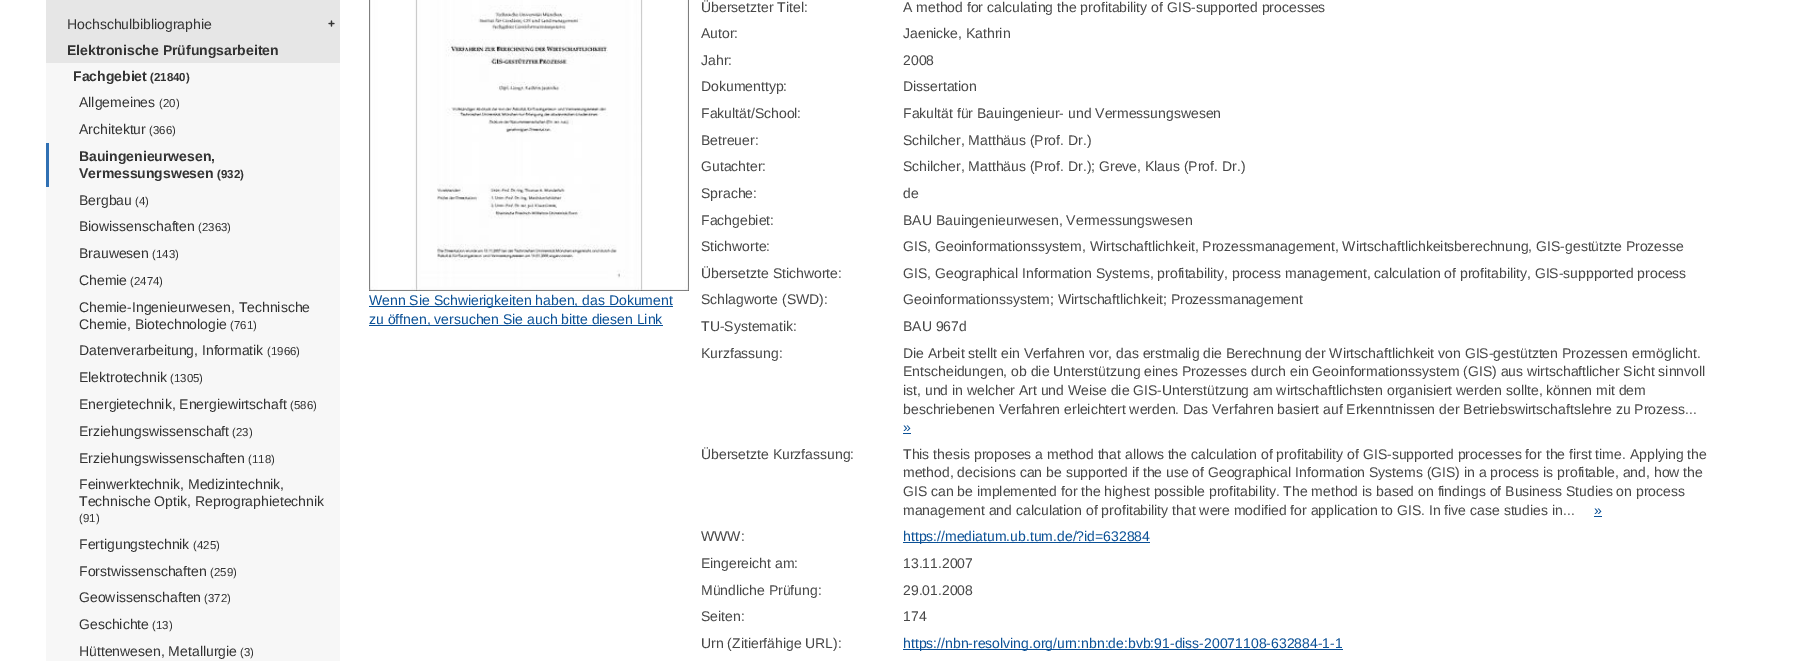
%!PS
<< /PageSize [1816 661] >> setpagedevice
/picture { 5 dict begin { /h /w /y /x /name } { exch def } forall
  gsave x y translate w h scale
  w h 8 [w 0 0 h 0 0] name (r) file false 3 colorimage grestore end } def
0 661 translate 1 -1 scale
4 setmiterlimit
1 setgray
0 0 1816 661 rectfill
0.902 setgray
46 0 294 63 rectfill
/LiberationSans-Regular [14 0 0 -14 0 0] selectfont
0.2 setgray
67 29 moveto (Hochschulbibliographie) show
(img1.rgb) 328 20 7 7 picture
/LiberationSans-Bold [14 0 0 -14 0 0] selectfont
67 55 moveto (Elektronische Prüfungsarbeiten) show
0.969 setgray
46 63 294 80 rectfill
0.2 setgray
73 81 moveto (Fachgebiet) show
/LiberationSans-Bold [11.5 0 0 -11.5 0 0] selectfont
150 81 moveto (\(21840\)) show
/LiberationSans-Regular [14 0 0 -14 0 0] selectfont
79 107 moveto (Allgemeines) show
/LiberationSans-Regular [11.5 0 0 -11.5 0 0] selectfont
159 107 moveto (\(20\)) show
/LiberationSans-Regular [14 0 0 -14 0 0] selectfont
79 134 moveto (Architektur) show
/LiberationSans-Regular [11.5 0 0 -11.5 0 0] selectfont
149 134 moveto (\(366\)) show
0.969 setgray
49 143 291 44 rectfill
0.188 0.439 0.702 setrgbcolor
46 143 3 44 rectfill
/LiberationSans-Bold [14 0 0 -14 0 0] selectfont
0.2 setgray
79 161 moveto (Bauingenieurwesen,) show
79 178 moveto (Vermessungswesen) show
/LiberationSans-Bold [11.5 0 0 -11.5 0 0] selectfont
217 178 moveto (\(932\)) show
0.969 setgray
46 187 294 474 rectfill
/LiberationSans-Regular [14 0 0 -14 0 0] selectfont
0.2 setgray
79 205 moveto (Bergbau) show
/LiberationSans-Regular [11.5 0 0 -11.5 0 0] selectfont
135 205 moveto (\(4\)) show
/LiberationSans-Regular [14 0 0 -14 0 0] selectfont
79 231 moveto (Biowissenschaften) show
/LiberationSans-Regular [11.5 0 0 -11.5 0 0] selectfont
198 231 moveto (\(2363\)) show
/LiberationSans-Regular [14 0 0 -14 0 0] selectfont
79 258 moveto (Brauwesen) show
/LiberationSans-Regular [11.5 0 0 -11.5 0 0] selectfont
152 258 moveto (\(143\)) show
/LiberationSans-Regular [14 0 0 -14 0 0] selectfont
79 285 moveto (Chemie) show
/LiberationSans-Regular [11.5 0 0 -11.5 0 0] selectfont
130 285 moveto (\(2474\)) show
/LiberationSans-Regular [14 0 0 -14 0 0] selectfont
79 312 moveto (Chemie-Ingenieurwesen, Technische) show
79 329 moveto (Chemie, Biotechnologie) show
/LiberationSans-Regular [11.5 0 0 -11.5 0 0] selectfont
230 329 moveto (\(761\)) show
/LiberationSans-Regular [14 0 0 -14 0 0] selectfont
79 355 moveto (Datenverarbeitung, Informatik) show
/LiberationSans-Regular [11.5 0 0 -11.5 0 0] selectfont
267 355 moveto (\(1966\)) show
/LiberationSans-Regular [14 0 0 -14 0 0] selectfont
79 382 moveto (Elektrotechnik) show
/LiberationSans-Regular [11.5 0 0 -11.5 0 0] selectfont
170 382 moveto (\(1305\)) show
/LiberationSans-Regular [14 0 0 -14 0 0] selectfont
79 409 moveto (Energietechnik, Energiewirtschaft) show
/LiberationSans-Regular [11.5 0 0 -11.5 0 0] selectfont
290 409 moveto (\(586\)) show
/LiberationSans-Regular [14 0 0 -14 0 0] selectfont
79 436 moveto (Erziehungswissenschaft) show
/LiberationSans-Regular [11.5 0 0 -11.5 0 0] selectfont
232 436 moveto (\(23\)) show
/LiberationSans-Regular [14 0 0 -14 0 0] selectfont
79 463 moveto (Erziehungswissenschaften) show
/LiberationSans-Regular [11.5 0 0 -11.5 0 0] selectfont
248 463 moveto (\(118\)) show
/LiberationSans-Regular [14 0 0 -14 0 0] selectfont
79 489 moveto (Feinwerktechnik, Medizintechnik,) show
79 506 moveto (Technische Optik, Reprographietechnik) show
/LiberationSans-Regular [11.5 0 0 -11.5 0 0] selectfont
79 522 moveto (\(91\)) show
/LiberationSans-Regular [14 0 0 -14 0 0] selectfont
79 549 moveto (Fertigungstechnik) show
/LiberationSans-Regular [11.5 0 0 -11.5 0 0] selectfont
193 549 moveto (\(425\)) show
/LiberationSans-Regular [14 0 0 -14 0 0] selectfont
79 576 moveto (Forstwissenschaften) show
/LiberationSans-Regular [11.5 0 0 -11.5 0 0] selectfont
210 576 moveto (\(259\)) show
/LiberationSans-Regular [14 0 0 -14 0 0] selectfont
79 602 moveto (Geowissenschaften) show
/LiberationSans-Regular [11.5 0 0 -11.5 0 0] selectfont
204 602 moveto (\(372\)) show
/LiberationSans-Regular [14 0 0 -14 0 0] selectfont
79 629 moveto (Geschichte) show
/LiberationSans-Regular [11.5 0 0 -11.5 0 0] selectfont
152 629 moveto (\(13\)) show
/LiberationSans-Regular [14 0 0 -14 0 0] selectfont
79 656 moveto (Hüttenwesen, Metallurgie) show
/LiberationSans-Regular [11.5 0 0 -11.5 0 0] selectfont
240 656 moveto (\(3\)) show
(img2.rgb) 369 0 320 291 picture
0.039 0.314 0.588 setrgbcolor
369 306 304 1 rectfill
/LiberationSans-Regular [14 0 0 -14 0 0] selectfont
369 305 moveto (Wenn Sie Schwierigkeiten haben, das Dokument) show
369 325 294 1 rectfill
369 324 moveto (zu öffnen, versuchen Sie auch bitte diesen Link) show
0.278 setgray
701 12 moveto (Übersetzter Titel:) show
903 12 moveto (A method for calculating the profitability of GIS-supported processes) show
701 38 moveto (Autor:) show
903 38 moveto (Jaenicke, Kathrin) show
701 65 moveto (Jahr:) show
903 65 moveto (2008) show
701 91 moveto (Dokumenttyp:) show
903 91 moveto (Dissertation) show
701 118 moveto (Fakultät/School:) show
903 118 moveto (Fakultät für Bauingenieur- und Vermessungswesen) show
701 145 moveto (Betreuer:) show
903 145 moveto (Schilcher, Matthäus \(Prof. Dr.\)) show
701 171 moveto (Gutachter:) show
903 171 moveto (Schilcher, Matthäus \(Prof. Dr.\); Greve, Klaus \(Prof. Dr.\)) show
701 198 moveto (Sprache:) show
903 198 moveto (de) show
701 225 moveto (Fachgebiet:) show
903 225 moveto (BAU Bauingenieurwesen, Vermessungswesen) show
701 251 moveto (Stichworte:) show
903 251 moveto (GIS, Geoinformationssystem, Wirtschaftlichkeit, Prozessmanagement, Wirtschaftlichkeitsberechnung, GIS-gestützte Prozesse) show
701 278 moveto (Übersetzte Stichworte:) show
903 278 moveto (GIS, Geographical Information Systems, profitability, process management, calculation of profitability, GIS-suppported process) show
701 304 moveto (Schlagworte \(SWD\):) show
903 304 moveto (Geoinformationssystem; Wirtschaftlichkeit; Prozessmanagement) show
701 331 moveto (TU-Systematik:) show
903 331 moveto (BAU 967d) show
701 358 moveto (Kurzfassung:) show
903 358 moveto (Die Arbeit stellt ein Verfahren vor, das erstmalig die Berechnung der Wirtschaftlichkeit von GIS-gestützten Prozessen ermöglicht.) show
903 376 moveto (Entscheidungen, ob die Unterstützung eines Prozesses durch ein Geoinformationssystem \(GIS\) aus wirtschaftlicher Sicht sinnvoll) show
903 395 moveto (ist, und in welcher Art und Weise die GIS-Unterstützung am wirtschaftlichsten organisiert werden sollte, können mit dem) show
903 414 moveto (beschriebenen Verfahren erleichtert werden. Das Verfahren basiert auf Erkenntnissen der Betriebswirtschaftslehre zu Prozess...) show
0.039 0.314 0.588 setrgbcolor
903 432 moveto (») show
903 433 8 1 rectfill
0.278 setgray
701 459 moveto (Übersetzte Kurzfassung:) show
903 459 moveto (This thesis proposes a method that allows the calculation of profitability of GIS-supported processes for the first time. Applying the) show
903 477 moveto (method, decisions can be supported if the use of Geographical Information Systems \(GIS\) in a process is profitable, and, how the) show
903 496 moveto (GIS can be implemented for the highest possible profitability. The method is based on findings of Business Studies on process) show
903 515 moveto (management and calculation of profitability that were modified for application to GIS. In five case studies in...) show
0.039 0.314 0.588 setrgbcolor
1594 515 moveto (») show
1594 516 8 1 rectfill
0.278 setgray
701 541 moveto (WWW:) show
0.039 0.314 0.588 setrgbcolor
903 542 247 1 rectfill
903 541 moveto (https://mediatum.ub.tum.de/?id=632884) show
0.278 setgray
701 568 moveto (Eingereicht am:) show
903 568 moveto (13.11.2007) show
701 595 moveto (Mündliche Prüfung:) show
903 595 moveto (29.01.2008) show
701 621 moveto (Seiten:) show
903 621 moveto (174) show
701 648 moveto (Urn \(Zitierfähige URL\):) show
0.039 0.314 0.588 setrgbcolor
903 649 440 1 rectfill
903 648 moveto (https://nbn-resolving.org/urn:nbn:de:bvb:91-diss-20071108-632884-1-1) show
showpage
